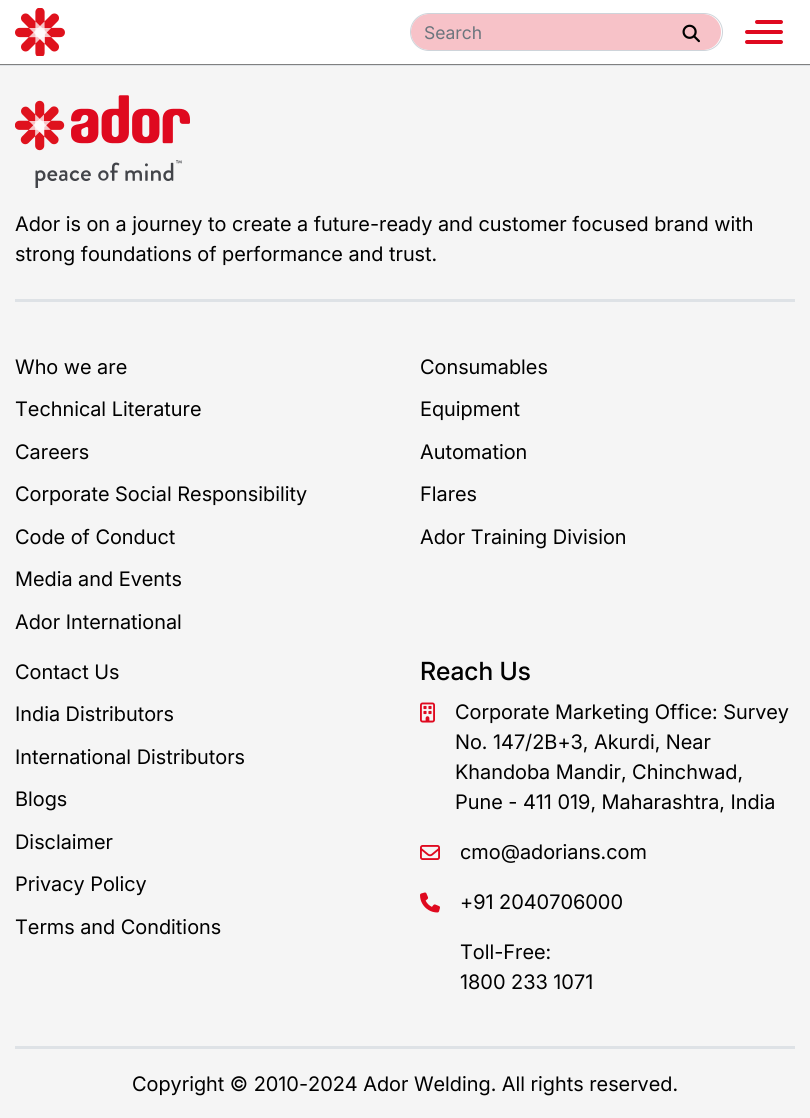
import math
import cairo



def rounded_rect(context, x, y, w, h, r):
    context.new_sub_path()
    for i, (u, v) in enumerate([(x + w - r, y + h - r), (x + r, y + h - r), (x + r, y + r), (x + w - r, y + r)]):
        context.arc(u, v, r, i * math.pi / 2, (i + 1) * math.pi / 2)
    context.close_path()


def draw_image(context, path, x, y, w, h):
    context.save()
    context.set_source_surface(cairo.ImageSurface.create_from_png(path), x, y)
    context.rectangle(x, y, w, h)
    context.fill()
    context.restore()


def draw(context):
    context.set_source_rgb(245 / 255, 245 / 255, 245 / 255)
    context.paint()
    context.set_source_rgb(1, 1, 1)
    context.rectangle(0, 0, 810, 64)
    context.fill()
    context.set_source_rgb(128 / 255, 128 / 255, 128 / 255)
    context.rectangle(0, 64, 810, 1)
    context.fill()
    draw_image(context, "images/1.png", 15, 8, 50, 48)
    context.set_source_rgb(247 / 255, 194 / 255, 200 / 255)
    rounded_rect(context, 411, 14, 310, 36, 18)
    context.fill()
    rounded_rect(context, 410.5, 13.5, 312, 37, 18.5)
    context.set_source_rgb(206 / 255, 212 / 255, 218 / 255)
    context.set_line_width(1)
    context.stroke()
    draw_image(context, "images/2.png", 682, 24, 18, 19)
    context.set_source_rgb(223 / 255, 9 / 255, 31 / 255)
    rounded_rect(context, 745, 30, 38, 4, 2)
    context.fill()
    rounded_rect(context, 755, 20, 28, 4, 2)
    context.fill()
    rounded_rect(context, 745, 40, 38, 4, 2)
    context.fill()
    context.set_source_rgb(222 / 255, 226 / 255, 230 / 255)
    context.rectangle(0, 65, 810, 1)
    context.fill()
    context.rectangle(15, 299, 780, 3)
    context.fill()
    draw_image(context, "images/3.png", 15, 95, 175, 93)
    draw_image(context, "images/4.png", 420, 702, 15, 21)
    draw_image(context, "images/5.png", 420, 845, 20, 15)
    draw_image(context, "images/6.png", 420, 892, 20, 21)
    context.rectangle(15, 1046, 780, 3)
    context.fill()
    context.select_font_face("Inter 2")
    context.set_font_size(17.5)
    context.set_source_rgb(108 / 255, 117 / 255, 125 / 255)
    context.move_to(424, 39)
    context.show_text("Search")
    context.select_font_face("Inter")
    context.set_font_size(20)
    context.set_source_rgb(0, 0, 0)
    context.move_to(15, 231)
    context.show_text("Ador is on a journey to create a future-ready and customer focused brand with")
    context.move_to(15, 261)
    context.show_text("strong foundations of performance and trust.")
    context.move_to(15, 374)
    context.show_text("Who we are")
    context.move_to(15, 416)
    context.show_text("Technical Literature")
    context.move_to(15, 459)
    context.show_text("Careers")
    context.move_to(15, 501)
    context.show_text("Corporate Social Responsibility")
    context.move_to(15, 544)
    context.show_text("Code of Conduct")
    context.move_to(15, 586)
    context.show_text("Media and Events")
    context.move_to(15, 629)
    context.show_text("Ador International")
    context.move_to(420, 374)
    context.show_text("Consumables")
    context.move_to(420, 416)
    context.show_text("Equipment")
    context.move_to(420, 459)
    context.show_text("Automation")
    context.move_to(420, 501)
    context.show_text("Flares")
    context.move_to(420, 544)
    context.show_text("Ador Training Division")
    context.move_to(15, 679)
    context.show_text("Contact Us")
    context.move_to(15, 721)
    context.show_text("India Distributors")
    context.move_to(15, 764)
    context.show_text("International Distributors")
    context.move_to(15, 806)
    context.show_text("Blogs")
    context.move_to(15, 849)
    context.show_text("Disclaimer")
    context.move_to(15, 891)
    context.show_text("Privacy Policy")
    context.move_to(15, 934)
    context.show_text("Terms and Conditions")
    context.select_font_face("Inter Medium")
    context.set_font_size(25)
    context.move_to(420, 680)
    context.show_text("Reach Us")
    context.select_font_face("Inter")
    context.set_font_size(20)
    context.move_to(455, 719)
    context.show_text("Corporate Marketing Office: Survey")
    context.move_to(455, 749)
    context.show_text("No. 147/2B+3, Akurdi, Near")
    context.move_to(455, 779)
    context.show_text("Khandoba Mandir, Chinchwad,")
    context.move_to(455, 809)
    context.show_text("Pune - 411 019, Maharashtra, India")
    context.move_to(460, 859)
    context.show_text("cmo@adorians.com")
    context.move_to(460, 909)
    context.show_text("+91 2040706000")
    context.move_to(460, 959)
    context.show_text("Toll-Free:")
    context.move_to(460, 989)
    context.show_text("1800 233 1071")
    context.move_to(132, 1091)
    context.show_text("Copyright © 2010-2024 Ador Welding. All rights reserved.")


surface = cairo.ImageSurface(cairo.Format.RGB24, 810, 1118)
context = cairo.Context(surface)
options = cairo.FontOptions()
options.set_hint_metrics(cairo.HintMetrics.OFF)
options.set_hint_style(cairo.HintStyle.NONE)
context.set_font_options(options)
context.set_miter_limit(4)
draw(context)
surface.write_to_png("out.png")
